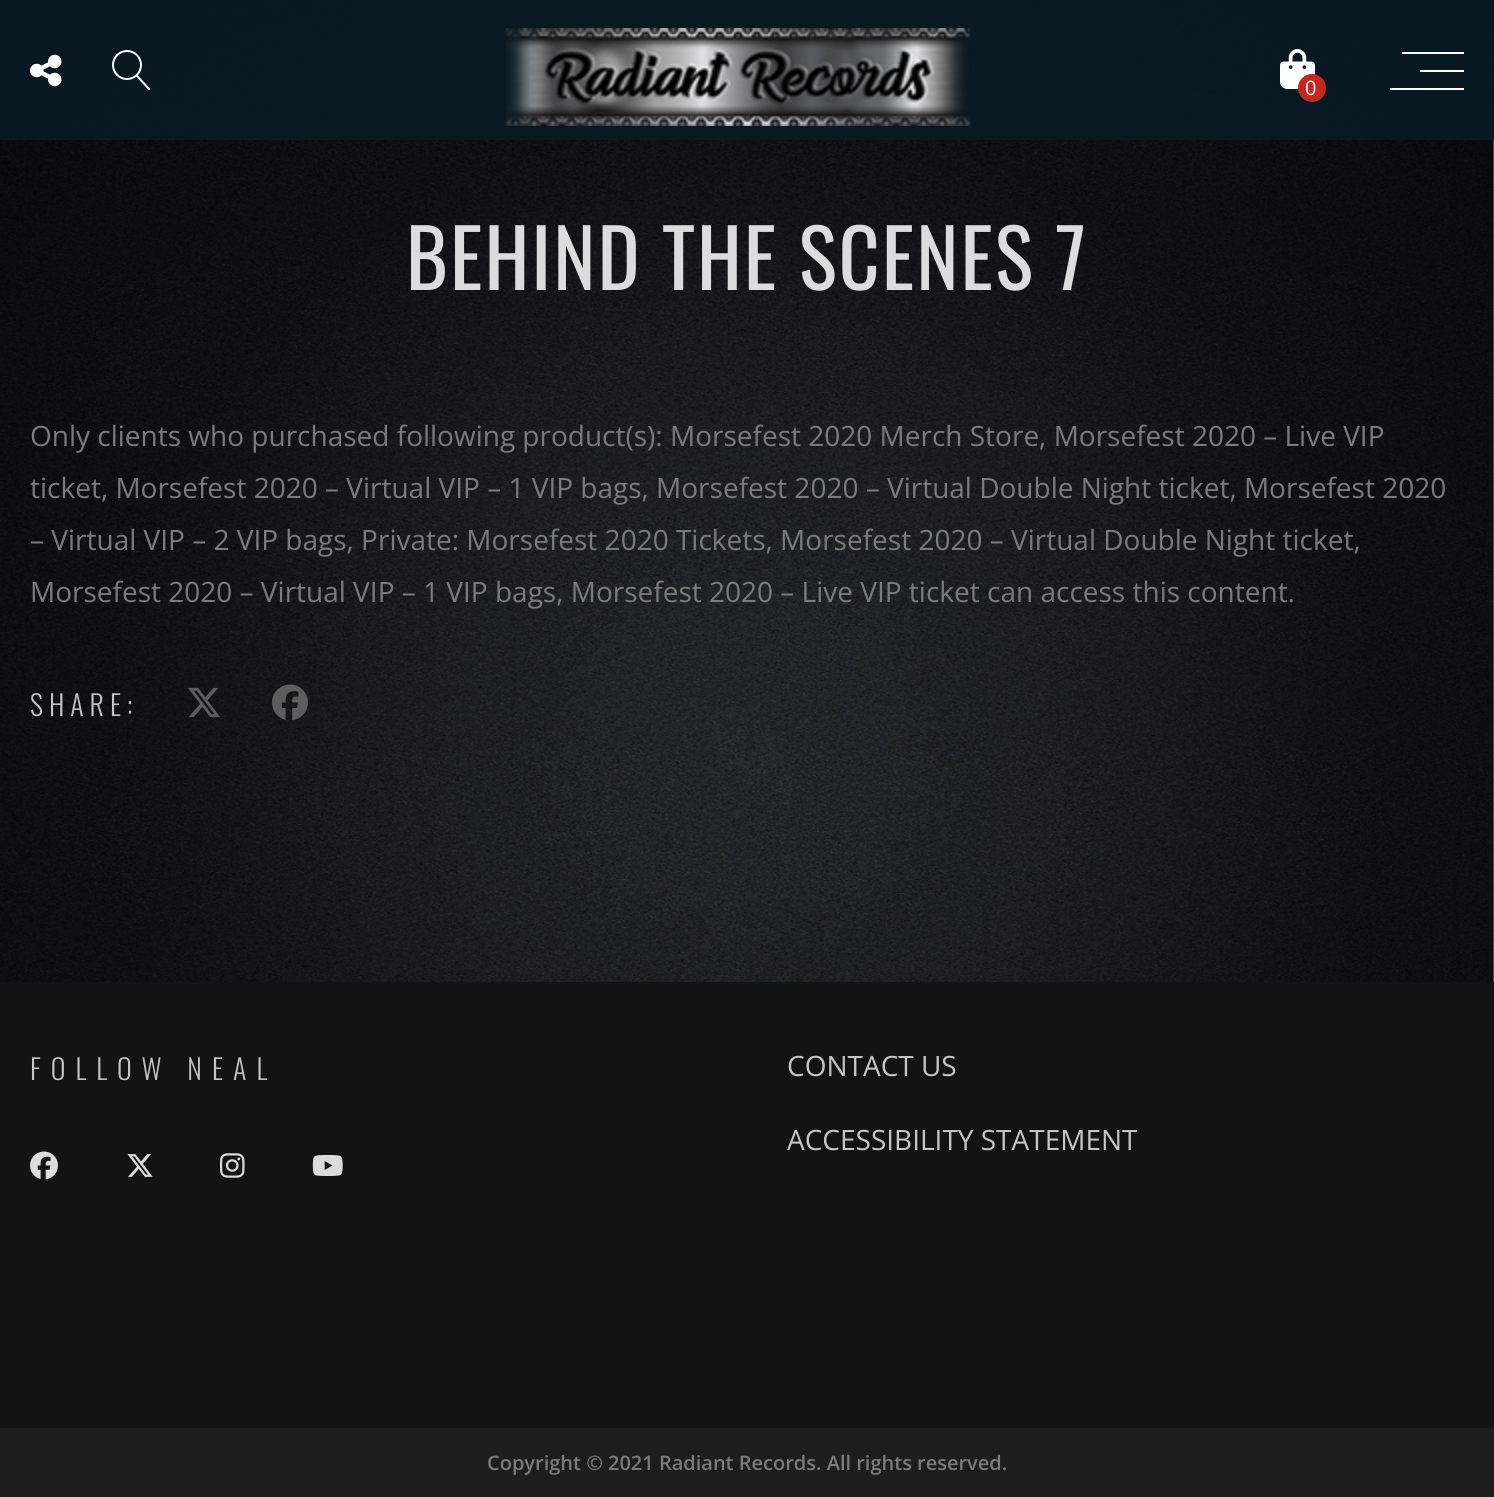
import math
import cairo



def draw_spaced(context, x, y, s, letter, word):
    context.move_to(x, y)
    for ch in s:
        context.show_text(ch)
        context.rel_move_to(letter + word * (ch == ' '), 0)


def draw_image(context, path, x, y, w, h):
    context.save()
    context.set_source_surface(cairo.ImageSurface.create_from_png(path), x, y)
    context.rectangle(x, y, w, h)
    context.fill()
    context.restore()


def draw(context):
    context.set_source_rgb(1, 1, 1)
    context.paint()
    draw_image(context, "images/1.png", 0, 0, 1494, 982)
    context.set_source_rgba(8 / 255, 26 / 255, 36 / 255, 0.8)
    context.rectangle(0, 0, 1494, 140)
    context.fill()
    context.rectangle(0, 0, 1494, 140)
    context.fill()
    draw_image(context, "images/2.png", 30, 54, 32, 33)
    draw_image(context, "images/3.png", 112, 50, 38, 40)
    draw_image(context, "images/4.png", 505, 28, 466, 98)
    draw_image(context, "images/5.png", 1280, 49, 35, 40)
    context.set_source_rgb(195 / 255, 39 / 255, 32 / 255)
    context.arc(1312, 88, 14, 0, 2 * math.pi)
    context.fill()
    context.set_source_rgb(1, 1, 1)
    context.rectangle(1402, 52, 62, 2)
    context.fill()
    context.rectangle(1420, 70, 44, 2)
    context.fill()
    context.rectangle(1390, 88, 74, 2)
    context.fill()
    draw_image(context, "images/6.png", 188, 687, 32, 31)
    draw_image(context, "images/7.png", 272, 684, 36, 37)
    context.set_source_rgb(19 / 255, 19 / 255, 19 / 255)
    context.rectangle(0, 982, 1494, 446)
    context.fill()
    draw_image(context, "images/8.png", 30, 1151, 28, 29)
    draw_image(context, "images/9.png", 127, 1154, 26, 23)
    draw_image(context, "images/10.png", 220, 1153, 25, 25)
    draw_image(context, "images/11.png", 312, 1155, 31, 21)
    context.set_source_rgb(29 / 255, 29 / 255, 29 / 255)
    context.rectangle(0, 1428, 1494, 69)
    context.fill()
    context.select_font_face("Open Sans")
    context.set_font_size(20)
    context.set_source_rgb(1, 1, 1)
    context.move_to(1305, 95)
    context.show_text("0")
    context.select_font_face("Oswald")
    context.set_font_size(80)
    context.set_source_rgb(220 / 255, 220 / 255, 220 / 255)
    draw_spaced(context, 406, 290, "BEHIND THE SCENES 7", 2, 0)
    context.select_font_face("Open Sans")
    context.set_font_size(28)
    context.set_source_rgb(123 / 255, 123 / 255, 123 / 255)
    context.move_to(30, 446)
    context.show_text("Only clients who purchased following product(s): Morsefest 2020 Merch Store, Morsefest 2020 – Live VIP")
    context.move_to(30, 498)
    context.show_text("ticket, Morsefest 2020 – Virtual VIP – 1 VIP bags, Morsefest 2020 – Virtual Double Night ticket, Morsefest 2020")
    context.move_to(30, 550)
    context.show_text("– Virtual VIP – 2 VIP bags, Private: Morsefest 2020 Tickets, Morsefest 2020 – Virtual Double Night ticket,")
    context.move_to(30, 602)
    context.show_text("Morsefest 2020 – Virtual VIP – 1 VIP bags, Morsefest 2020 – Live VIP ticket can access this content.")
    context.select_font_face("Oswald Light")
    context.set_source_rgb(197 / 255, 197 / 255, 197 / 255)
    draw_spaced(context, 30, 716, "SHARE:", 6, 0)
    draw_spaced(context, 30, 1080, "FOLLOW NEAL", 10, 0)
    context.select_font_face("Open Sans")
    context.move_to(787, 1076)
    context.show_text("CONTACT US")
    context.move_to(787, 1150)
    context.show_text("ACCESSIBILITY STATEMENT")
    context.select_font_face("Open Sans SemiBold")
    context.set_font_size(20)
    context.set_source_rgb(123 / 255, 123 / 255, 123 / 255)
    context.move_to(487, 1470)
    context.show_text("Copyright © 2021 Radiant Records. All rights reserved.")


surface = cairo.ImageSurface(cairo.Format.RGB24, 1494, 1497)
context = cairo.Context(surface)
options = cairo.FontOptions()
options.set_hint_metrics(cairo.HintMetrics.OFF)
options.set_hint_style(cairo.HintStyle.NONE)
context.set_font_options(options)
context.set_miter_limit(4)
draw(context)
surface.write_to_png("out.png")
